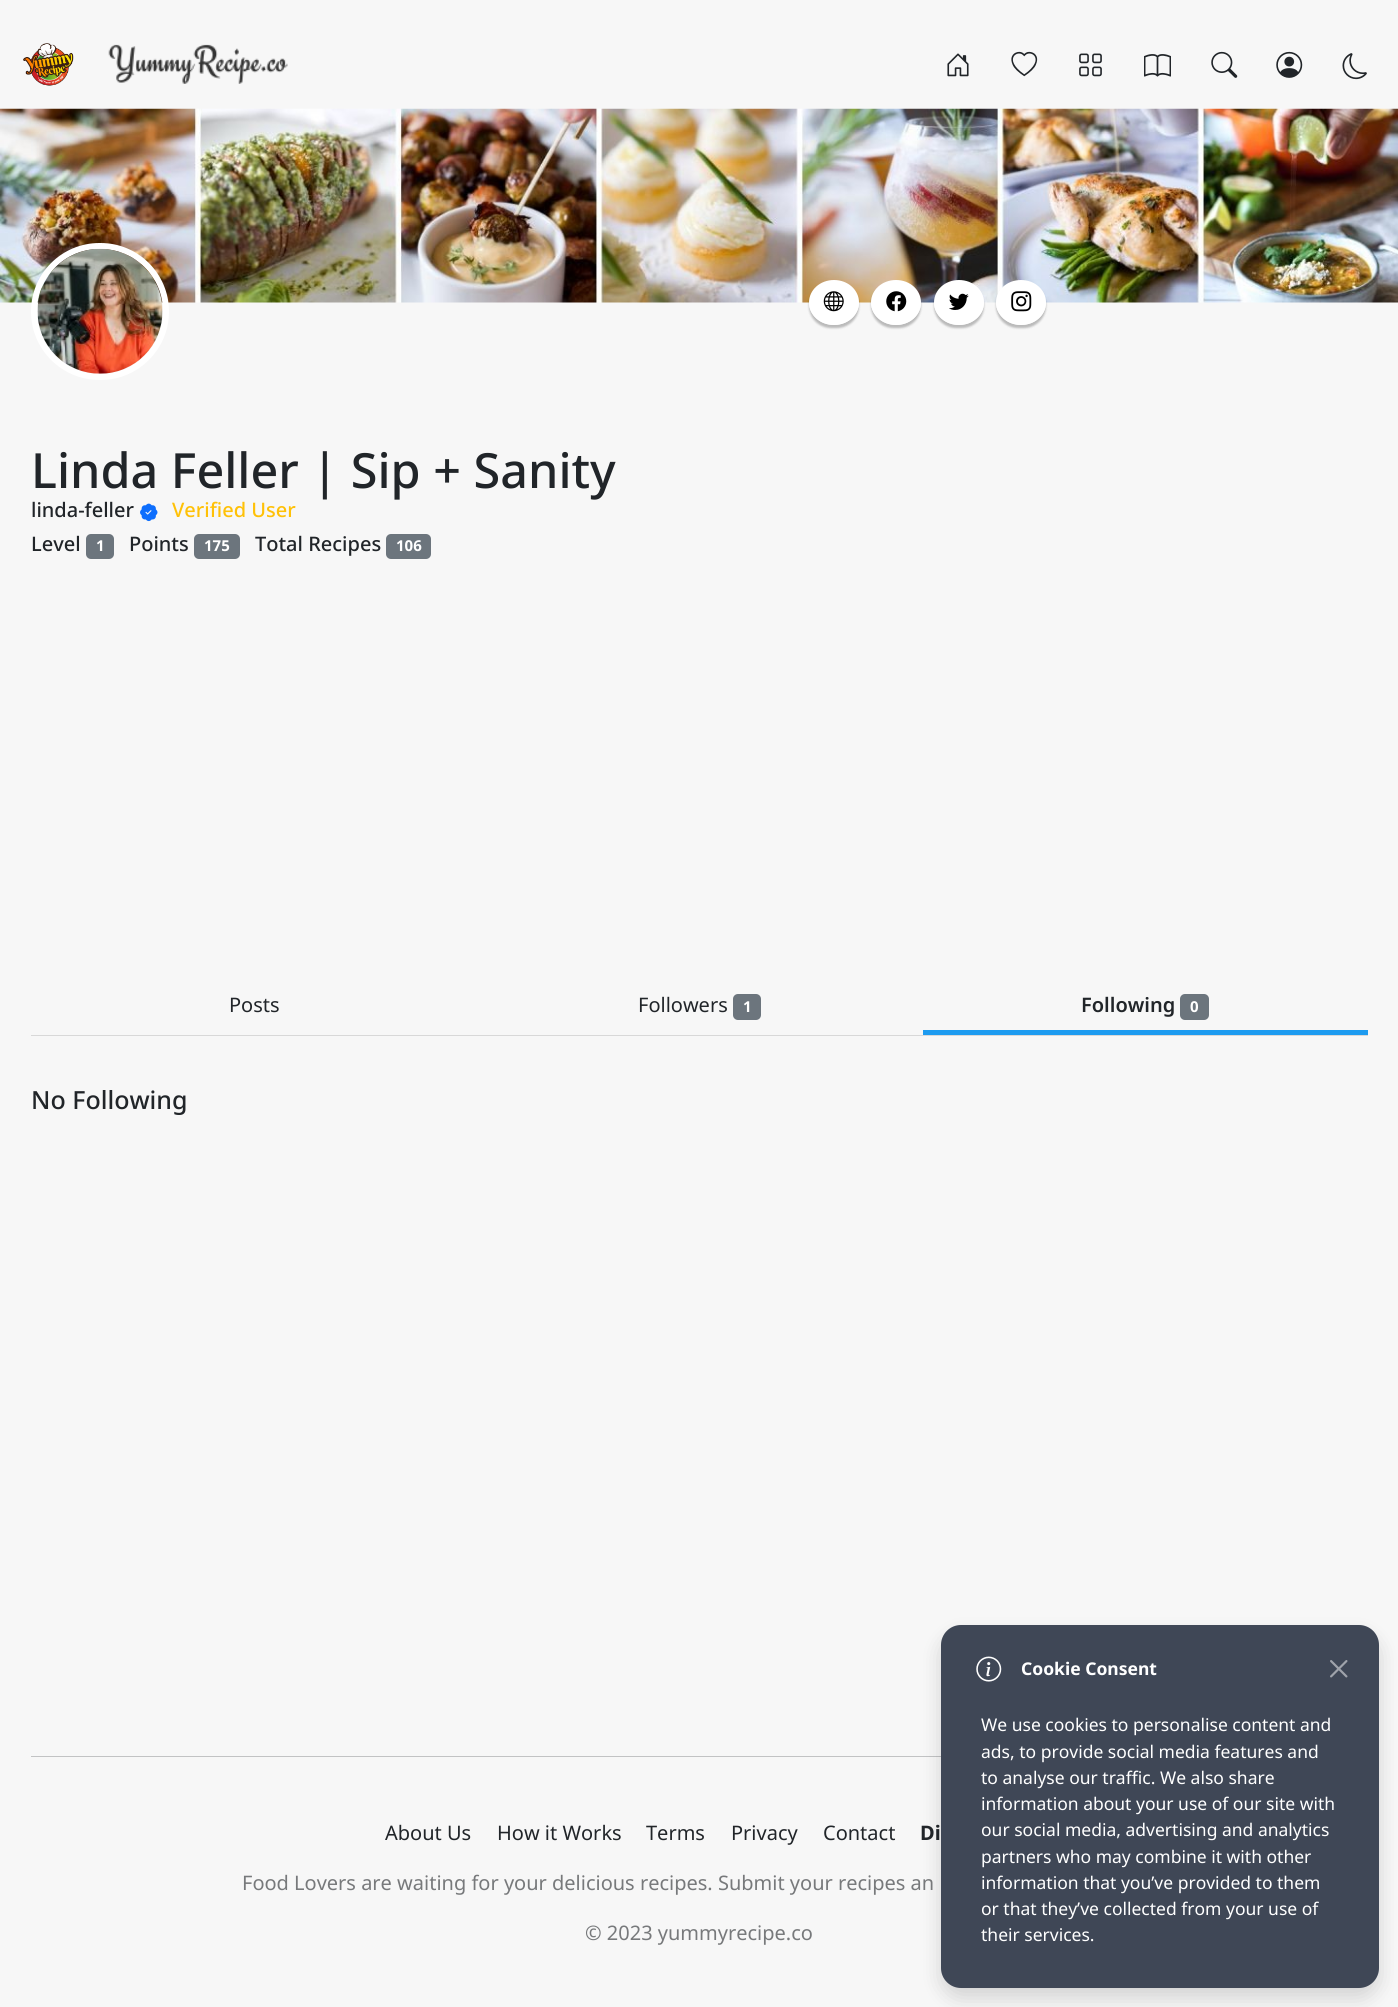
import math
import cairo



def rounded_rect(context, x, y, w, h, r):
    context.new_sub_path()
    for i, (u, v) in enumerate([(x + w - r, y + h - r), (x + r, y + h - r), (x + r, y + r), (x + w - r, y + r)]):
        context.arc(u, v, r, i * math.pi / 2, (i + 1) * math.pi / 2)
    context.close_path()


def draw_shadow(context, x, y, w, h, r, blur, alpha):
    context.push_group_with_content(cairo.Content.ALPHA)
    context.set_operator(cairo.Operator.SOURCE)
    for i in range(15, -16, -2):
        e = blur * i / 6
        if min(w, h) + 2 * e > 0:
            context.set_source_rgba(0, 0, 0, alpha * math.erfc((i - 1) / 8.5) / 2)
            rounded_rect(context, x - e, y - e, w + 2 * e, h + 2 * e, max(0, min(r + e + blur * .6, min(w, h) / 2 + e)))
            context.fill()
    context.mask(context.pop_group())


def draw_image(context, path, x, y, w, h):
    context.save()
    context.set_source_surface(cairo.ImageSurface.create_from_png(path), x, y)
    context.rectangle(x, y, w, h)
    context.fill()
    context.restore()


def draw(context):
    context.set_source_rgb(247 / 255, 247 / 255, 247 / 255)
    context.paint()
    draw_image(context, "images/1.png", 23, 43, 51, 43)
    draw_image(context, "images/2.png", 108, 44, 180, 40)
    draw_image(context, "images/3.png", 947, 53, 22, 24)
    draw_image(context, "images/4.png", 1011, 51, 27, 26)
    draw_image(context, "images/5.png", 1079, 53, 23, 24)
    draw_image(context, "images/6.png", 1144, 54, 27, 23)
    draw_image(context, "images/7.png", 1211, 51, 27, 27)
    draw_image(context, "images/8.png", 1276, 51, 27, 27)
    draw_image(context, "images/9.png", 1342, 53, 25, 27)
    draw_image(context, "images/10.png", 0, 108, 1398, 195)
    context.set_source_rgb(216 / 255, 216 / 255, 216 / 255)
    context.rectangle(31, 1035, 1337, 1)
    context.fill()
    context.save()
    context.set_fill_rule(cairo.FillRule.EVEN_ODD)
    context.new_path()
    context.move_to(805, 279)
    context.line_to(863, 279)
    context.line_to(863, 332)
    context.line_to(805, 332)
    context.close_path()
    context.move_to(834, 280)
    context.curve_to(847.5, 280, 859, 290, 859, 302.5)
    context.curve_to(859, 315, 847.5, 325, 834, 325)
    context.curve_to(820, 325, 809, 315, 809, 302.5)
    context.curve_to(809, 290, 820, 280, 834, 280)
    context.close_path()
    context.clip()
    context.set_source_rgb(0, 0, 0)
    draw_shadow(context, 809, 283, 50, 45, 22.5, 1, 0.25)
    context.restore()
    context.set_source_rgb(1, 1, 1)
    context.new_path()
    context.move_to(834, 280)
    context.curve_to(848, 280, 859, 290, 859, 302.5)
    context.curve_to(859, 315, 848, 325, 834, 325)
    context.curve_to(820, 325, 809, 315, 809, 302.5)
    context.curve_to(809, 290, 820, 280, 834, 280)
    context.close_path()
    context.fill()
    draw_image(context, "images/11.png", 823, 291, 21, 21)
    context.save()
    context.set_fill_rule(cairo.FillRule.EVEN_ODD)
    context.new_path()
    context.move_to(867, 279)
    context.line_to(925, 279)
    context.line_to(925, 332)
    context.line_to(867, 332)
    context.close_path()
    context.move_to(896, 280)
    context.curve_to(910, 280, 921, 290, 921, 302.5)
    context.curve_to(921, 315, 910, 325, 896, 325)
    context.curve_to(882.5, 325, 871, 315, 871, 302.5)
    context.curve_to(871, 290, 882.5, 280, 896, 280)
    context.close_path()
    context.clip()
    context.set_source_rgb(0, 0, 0)
    draw_shadow(context, 871, 283, 50, 45, 22.5, 1, 0.25)
    context.restore()
    context.new_path()
    context.move_to(896, 280)
    context.curve_to(910, 280, 921, 290, 921, 302.5)
    context.curve_to(921, 315, 910, 325, 896, 325)
    context.curve_to(882, 325, 871, 315, 871, 302.5)
    context.curve_to(871, 290, 882, 280, 896, 280)
    context.close_path()
    context.fill()
    draw_image(context, "images/12.png", 886, 291, 21, 21)
    context.save()
    context.set_fill_rule(cairo.FillRule.EVEN_ODD)
    context.new_path()
    context.move_to(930, 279)
    context.line_to(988, 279)
    context.line_to(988, 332)
    context.line_to(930, 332)
    context.close_path()
    context.move_to(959, 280)
    context.curve_to(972.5, 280, 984, 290, 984, 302.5)
    context.curve_to(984, 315, 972.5, 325, 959, 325)
    context.curve_to(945, 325, 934, 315, 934, 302.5)
    context.curve_to(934, 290, 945, 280, 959, 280)
    context.close_path()
    context.clip()
    context.set_source_rgb(0, 0, 0)
    draw_shadow(context, 934, 283, 50, 45, 22.5, 1, 0.25)
    context.restore()
    context.new_path()
    context.move_to(959, 280)
    context.curve_to(973, 280, 984, 290, 984, 302.5)
    context.curve_to(984, 315, 973, 325, 959, 325)
    context.curve_to(945, 325, 934, 315, 934, 302.5)
    context.curve_to(934, 290, 945, 280, 959, 280)
    context.close_path()
    context.fill()
    draw_image(context, "images/13.png", 949, 293, 20, 17)
    context.save()
    context.set_fill_rule(cairo.FillRule.EVEN_ODD)
    context.new_path()
    context.move_to(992, 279)
    context.line_to(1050, 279)
    context.line_to(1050, 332)
    context.line_to(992, 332)
    context.close_path()
    context.move_to(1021, 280)
    context.curve_to(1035, 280, 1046, 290, 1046, 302.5)
    context.curve_to(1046, 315, 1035, 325, 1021, 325)
    context.curve_to(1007.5, 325, 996, 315, 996, 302.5)
    context.curve_to(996, 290, 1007.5, 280, 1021, 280)
    context.close_path()
    context.clip()
    context.set_source_rgb(0, 0, 0)
    draw_shadow(context, 996, 283, 50, 45, 22.5, 1, 0.25)
    context.restore()
    context.new_path()
    context.move_to(1021, 280)
    context.curve_to(1035, 280, 1046, 290, 1046, 302.5)
    context.curve_to(1046, 315, 1035, 325, 1021, 325)
    context.curve_to(1007, 325, 996, 315, 996, 302.5)
    context.curve_to(996, 290, 1007, 280, 1021, 280)
    context.close_path()
    context.fill()
    draw_image(context, "images/14.png", 1011, 291, 21, 21)
    rounded_rect(context, 34, 246, 132, 131, 65.5)
    context.set_line_width(6)
    context.stroke()
    draw_image(context, "images/15.png", 37, 248, 126, 126)
    draw_image(context, "images/16.png", 140, 503, 18, 19)
    context.set_source_rgb(108 / 255, 117 / 255, 125 / 255)
    rounded_rect(context, 86, 534, 28, 25, 5)
    context.fill()
    rounded_rect(context, 194, 534, 46, 25, 5)
    context.fill()
    rounded_rect(context, 386, 534, 45, 25, 5)
    context.fill()
    rounded_rect(context, 733, 994, 28, 26, 5)
    context.fill()
    context.set_source_rgb(29 / 255, 155 / 255, 240 / 255)
    context.rectangle(923, 1030, 445, 5)
    context.fill()
    context.set_source_rgb(108 / 255, 117 / 255, 125 / 255)
    rounded_rect(context, 1180, 994, 29, 26, 5)
    context.fill()
    context.set_source_rgb(194 / 255, 195 / 255, 196 / 255)
    context.rectangle(31, 1756, 910, 1)
    context.fill()
    context.set_source_rgb(0, 0, 0)
    draw_shadow(context, 941, 1635, 438, 363, 20, 10, 0.15)
    context.set_source_rgb(63 / 255, 71 / 255, 86 / 255)
    rounded_rect(context, 941, 1625, 438, 363, 20)
    context.fill()
    draw_image(context, "images/17.png", 976, 1656, 26, 26)
    draw_image(context, "images/18.png", 1330, 1660, 18, 18)
    context.select_font_face("Noto Sans Medium")
    context.set_font_size(48.5)
    context.set_source_rgb(33 / 255, 37 / 255, 41 / 255)
    context.move_to(31, 488)
    context.show_text("Linda Feller | Sip + Sanity")
    context.set_font_size(20)
    context.move_to(31, 517)
    context.show_text("linda-feller")
    context.set_source_rgb(1, 193 / 255, 7 / 255)
    context.move_to(172, 517)
    context.show_text("Verified User")
    context.set_source_rgb(33 / 255, 37 / 255, 41 / 255)
    context.move_to(31, 551)
    context.show_text("Level")
    context.select_font_face("Noto Sans", cairo.FontSlant.NORMAL, cairo.FontWeight.BOLD)
    context.set_font_size(15)
    context.set_source_rgb(1, 1, 1)
    context.move_to(96, 551)
    context.show_text("1")
    context.select_font_face("Noto Sans Medium")
    context.set_font_size(20)
    context.set_source_rgb(33 / 255, 37 / 255, 41 / 255)
    context.move_to(129, 551)
    context.show_text("Points")
    context.select_font_face("Noto Sans", cairo.FontSlant.NORMAL, cairo.FontWeight.BOLD)
    context.set_font_size(15)
    context.set_source_rgb(1, 1, 1)
    context.move_to(204, 551)
    context.show_text("175")
    context.select_font_face("Noto Sans Medium")
    context.set_font_size(20)
    context.set_source_rgb(33 / 255, 37 / 255, 41 / 255)
    context.move_to(255, 551)
    context.show_text("Total Recipes")
    context.select_font_face("Noto Sans", cairo.FontSlant.NORMAL, cairo.FontWeight.BOLD)
    context.set_font_size(15)
    context.set_source_rgb(1, 1, 1)
    context.move_to(396, 551)
    context.show_text("106")
    context.select_font_face("Noto Sans")
    context.set_font_size(20)
    context.set_source_rgb(33 / 255, 37 / 255, 41 / 255)
    context.move_to(229, 1012)
    context.show_text("Posts")
    context.move_to(638, 1012)
    context.show_text("Followers")
    context.select_font_face("Noto Sans", cairo.FontSlant.NORMAL, cairo.FontWeight.BOLD)
    context.set_font_size(15)
    context.set_source_rgb(1, 1, 1)
    context.move_to(743, 1012)
    context.show_text("1")
    context.select_font_face("Noto Sans SemiBold")
    context.set_font_size(20)
    context.set_source_rgb(33 / 255, 37 / 255, 41 / 255)
    context.move_to(1081, 1012)
    context.show_text("Following")
    context.select_font_face("Noto Sans", cairo.FontSlant.NORMAL, cairo.FontWeight.BOLD)
    context.set_font_size(15)
    context.set_source_rgb(1, 1, 1)
    context.move_to(1190, 1012)
    context.show_text("0")
    context.select_font_face("Noto Sans Medium")
    context.set_font_size(25)
    context.set_source_rgb(33 / 255, 37 / 255, 41 / 255)
    context.move_to(31, 1109)
    context.show_text("No Following")
    context.select_font_face("Noto Sans")
    context.set_font_size(20)
    context.move_to(385, 1840)
    context.show_text("About Us")
    context.move_to(497, 1840)
    context.show_text("How it Works")
    context.move_to(646, 1840)
    context.show_text("Terms")
    context.move_to(731, 1840)
    context.show_text("Privacy")
    context.move_to(823, 1840)
    context.show_text("Contact")
    context.select_font_face("Noto Sans", cairo.FontSlant.NORMAL, cairo.FontWeight.BOLD)
    context.move_to(920, 1840)
    context.show_text("Di")
    context.select_font_face("Noto Sans")
    context.set_source_rgb(119 / 255, 121 / 255, 123 / 255)
    context.move_to(242, 1890)
    context.show_text("Food Lovers are waiting for your delicious recipes. Submit your recipes an")
    context.move_to(585, 1940)
    context.show_text("© 2023 yummyrecipe.co")
    context.select_font_face("Noto Sans", cairo.FontSlant.NORMAL, cairo.FontWeight.BOLD)
    context.set_font_size(17.5)
    context.set_source_rgb(1, 1, 1)
    context.move_to(1021, 1675)
    context.show_text("Cookie Consent")
    context.select_font_face("Noto Sans")
    context.move_to(981, 1731)
    context.show_text("We use cookies to personalise content and")
    context.move_to(981, 1758)
    context.show_text("ads, to provide social media features and")
    context.move_to(981, 1784)
    context.show_text("to analyse our traffic. We also share")
    context.move_to(981, 1810)
    context.show_text("information about your use of our site with")
    context.move_to(981, 1836)
    context.show_text("our social media, advertising and analytics")
    context.move_to(981, 1863)
    context.show_text("partners who may combine it with other")
    context.move_to(981, 1889)
    context.show_text("information that you’ve provided to them")
    context.move_to(981, 1915)
    context.show_text("or that they’ve collected from your use of")
    context.move_to(981, 1941)
    context.show_text("their services.")


surface = cairo.ImageSurface(cairo.Format.RGB24, 1398, 2007)
context = cairo.Context(surface)
options = cairo.FontOptions()
options.set_hint_metrics(cairo.HintMetrics.OFF)
options.set_hint_style(cairo.HintStyle.NONE)
context.set_font_options(options)
context.set_miter_limit(4)
draw(context)
surface.write_to_png("out.png")
